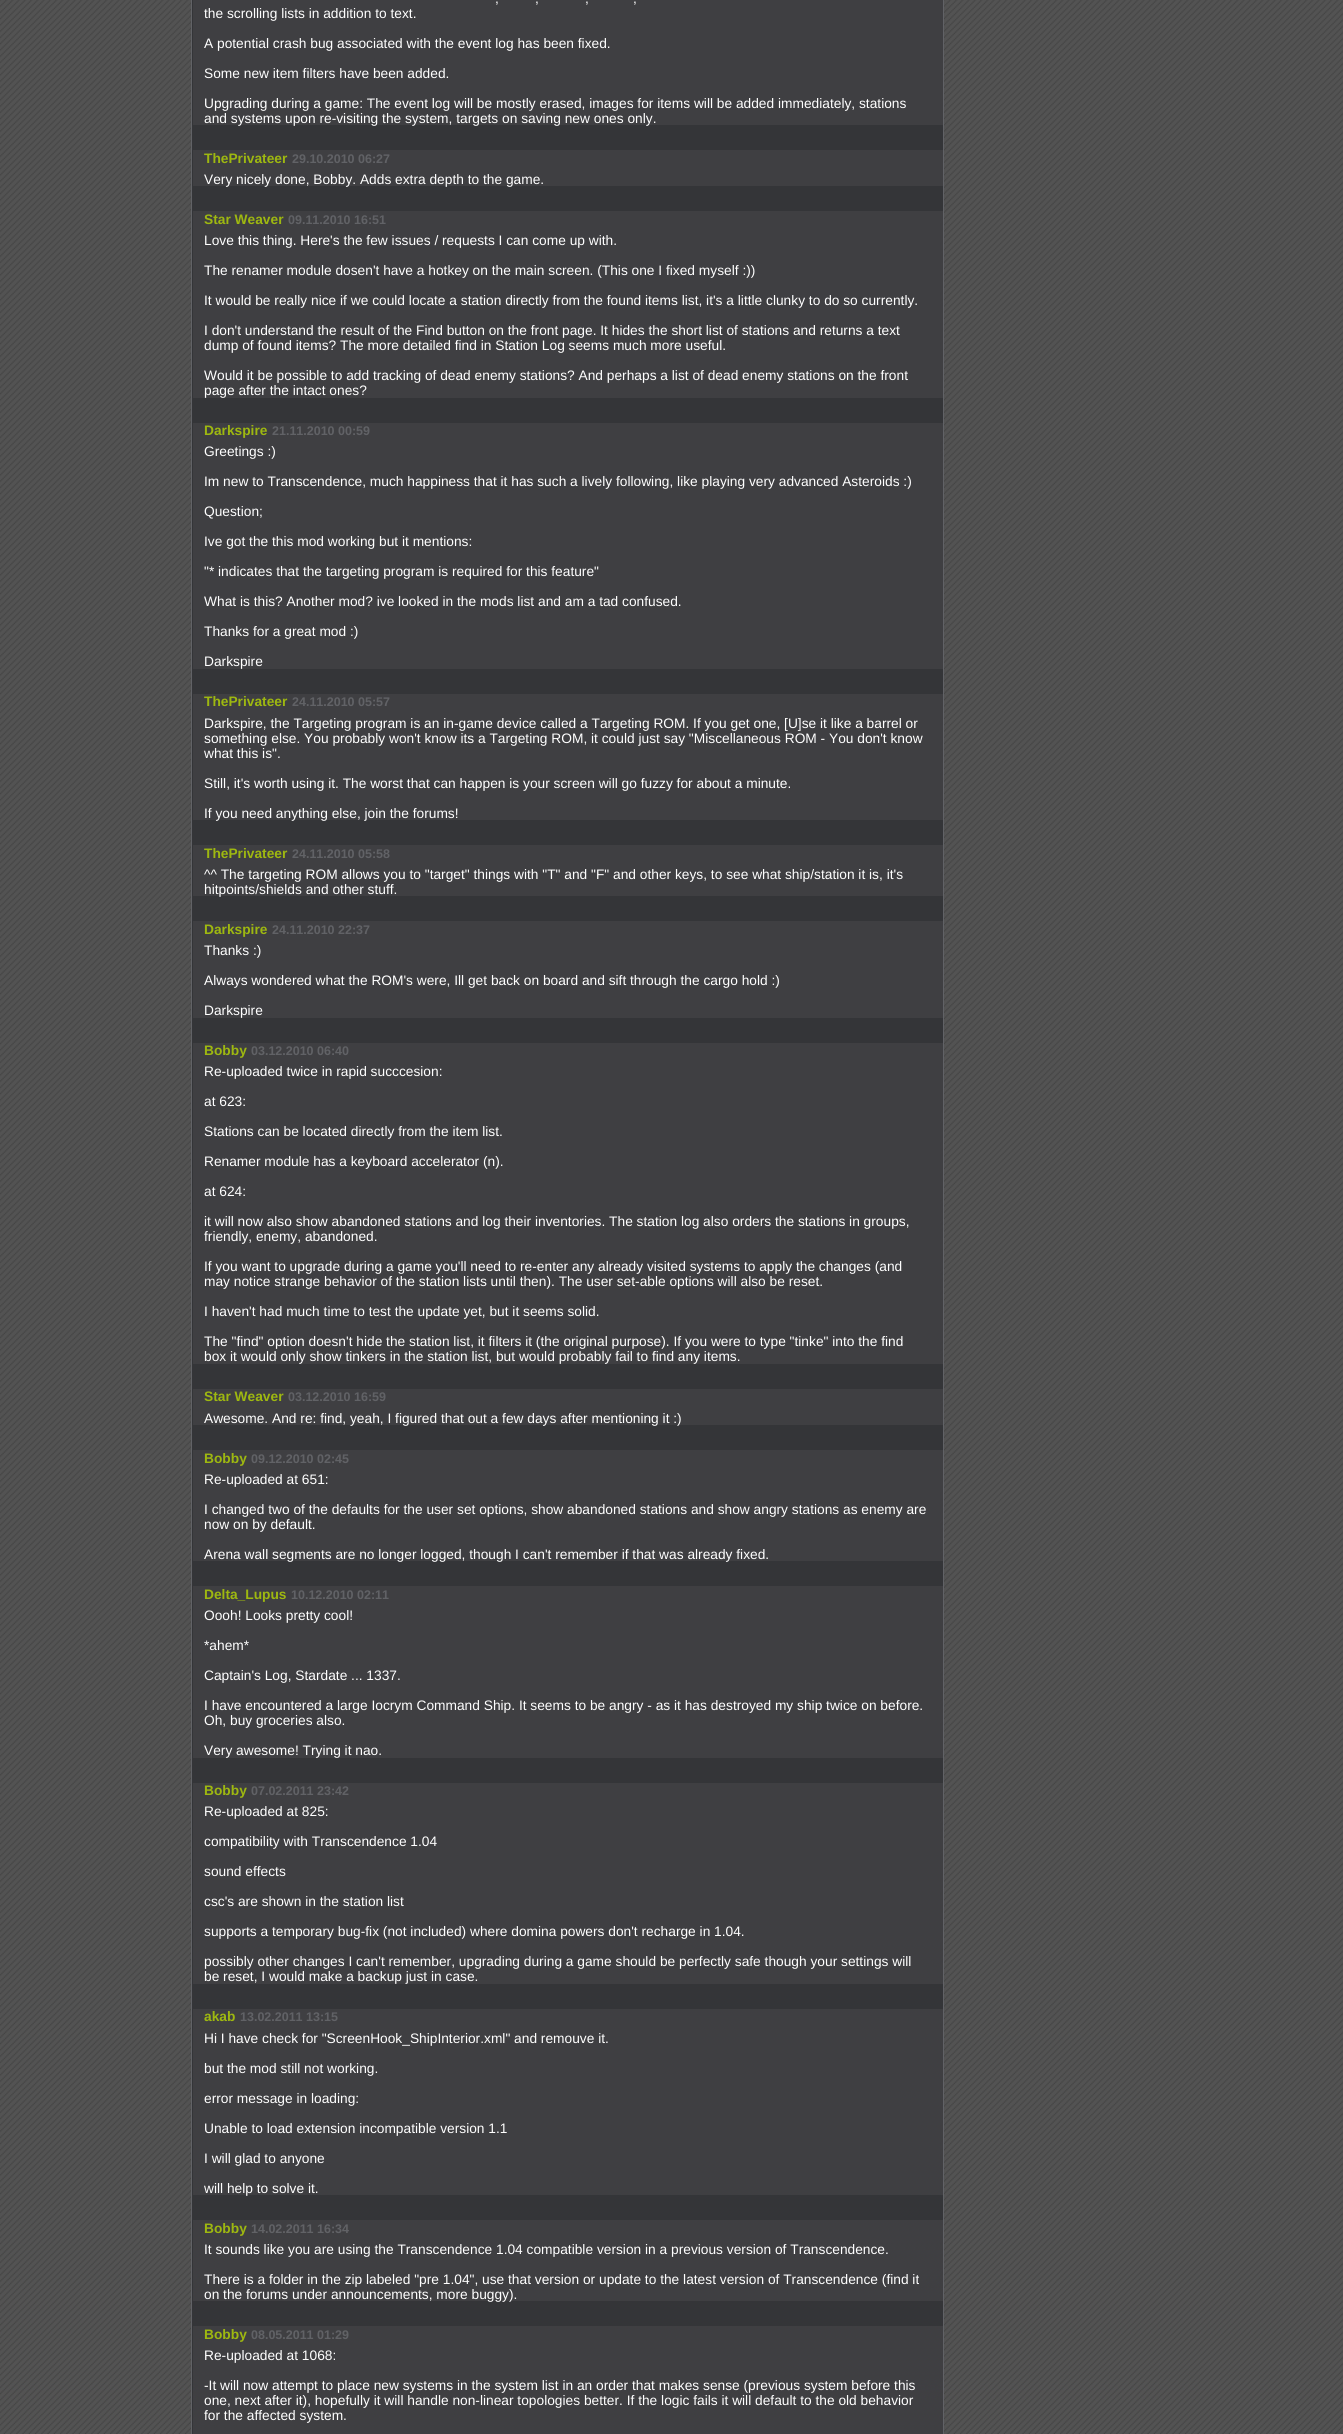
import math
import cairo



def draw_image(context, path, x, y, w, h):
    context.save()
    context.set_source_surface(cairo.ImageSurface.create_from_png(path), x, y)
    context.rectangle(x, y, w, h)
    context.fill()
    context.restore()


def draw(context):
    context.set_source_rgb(1, 1, 1)
    context.paint()
    draw_image(context, "images/1.png", 0, 0, 1343, 2434)
    context.set_source_rgb(52 / 255, 53 / 255, 56 / 255)
    context.rectangle(191.5, -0.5, 752, 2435)
    context.fill_preserve()
    context.set_source_rgb(97 / 255, 98 / 255, 102 / 255)
    context.set_line_width(1)
    context.stroke()
    context.set_source_rgb(63 / 255, 63 / 255, 66 / 255)
    context.rectangle(193, 0, 750, 125)
    context.fill()
    context.rectangle(193, 150, 750, 36)
    context.fill()
    context.rectangle(193, 211, 750, 187)
    context.fill()
    context.rectangle(193, 423, 750, 246)
    context.fill()
    context.rectangle(193, 694, 750, 126)
    context.fill()
    context.rectangle(193, 845, 750, 51)
    context.fill()
    context.rectangle(193, 921, 750, 97)
    context.fill()
    context.rectangle(193, 1043, 750, 321)
    context.fill()
    context.rectangle(193, 1389, 750, 36)
    context.fill()
    context.rectangle(193, 1450, 750, 111)
    context.fill()
    context.rectangle(193, 1586, 750, 172)
    context.fill()
    context.rectangle(193, 1783, 750, 201)
    context.fill()
    context.rectangle(193, 2009, 750, 186)
    context.fill()
    context.rectangle(193, 2220, 750, 81)
    context.fill()
    context.rectangle(193, 2326, 750, 108)
    context.fill()
    context.select_font_face("Liberation Sans")
    context.set_font_size(13.75)
    context.set_source_rgb(1, 1, 1)
    context.move_to(495, 3)
    context.show_text(",")
    context.move_to(535, 3)
    context.show_text(",")
    context.move_to(585, 3)
    context.show_text(",")
    context.move_to(633, 3)
    context.show_text(",")
    context.move_to(204, 18)
    context.show_text("the scrolling lists in addition to text.")
    context.move_to(204, 48)
    context.show_text("A potential crash bug associated with the event log has been fixed.")
    context.move_to(204, 78)
    context.show_text("Some new item filters have been added.")
    context.move_to(204, 108)
    context.show_text("Upgrading during a game: The event log will be mostly erased, images for items will be added immediately, stations")
    context.move_to(204, 123)
    context.show_text("and systems upon re-visiting the system, targets on saving new ones only.")
    context.select_font_face("Liberation Sans", cairo.FontSlant.NORMAL, cairo.FontWeight.BOLD)
    context.set_source_rgb(158 / 255, 184 / 255, 16 / 255)
    context.move_to(204, 163)
    context.show_text("ThePrivateer")
    context.set_font_size(12.5)
    context.set_source_rgb(97 / 255, 98 / 255, 102 / 255)
    context.move_to(292, 163)
    context.show_text("29.10.2010 06:27")
    context.select_font_face("Liberation Sans")
    context.set_font_size(13.75)
    context.set_source_rgb(1, 1, 1)
    context.move_to(204, 184)
    context.show_text("Very nicely done, Bobby. Adds extra depth to the game.")
    context.select_font_face("Liberation Sans", cairo.FontSlant.NORMAL, cairo.FontWeight.BOLD)
    context.set_source_rgb(158 / 255, 184 / 255, 16 / 255)
    context.move_to(204, 224)
    context.show_text("Star Weaver")
    context.set_font_size(12.5)
    context.set_source_rgb(97 / 255, 98 / 255, 102 / 255)
    context.move_to(288, 224)
    context.show_text("09.11.2010 16:51")
    context.select_font_face("Liberation Sans")
    context.set_font_size(13.75)
    context.set_source_rgb(1, 1, 1)
    context.move_to(204, 245)
    context.show_text("Love this thing. Here's the few issues / requests I can come up with.")
    context.move_to(204, 275)
    context.show_text("The renamer module dosen't have a hotkey on the main screen. (This one I fixed myself :))")
    context.move_to(204, 305)
    context.show_text("It would be really nice if we could locate a station directly from the found items list, it's a little clunky to do so currently.")
    context.move_to(204, 335)
    context.show_text("I don't understand the result of the Find button on the front page. It hides the short list of stations and returns a text")
    context.move_to(204, 350)
    context.show_text("dump of found items? The more detailed find in Station Log seems much more useful.")
    context.move_to(204, 380)
    context.show_text("Would it be possible to add tracking of dead enemy stations? And perhaps a list of dead enemy stations on the front")
    context.move_to(204, 395)
    context.show_text("page after the intact ones?")
    context.select_font_face("Liberation Sans", cairo.FontSlant.NORMAL, cairo.FontWeight.BOLD)
    context.set_source_rgb(158 / 255, 184 / 255, 16 / 255)
    context.move_to(204, 435)
    context.show_text("Darkspire")
    context.set_font_size(12.5)
    context.set_source_rgb(97 / 255, 98 / 255, 102 / 255)
    context.move_to(272, 435)
    context.show_text("21.11.2010 00:59")
    context.select_font_face("Liberation Sans")
    context.set_font_size(13.75)
    context.set_source_rgb(1, 1, 1)
    context.move_to(204, 456)
    context.show_text("Greetings :)")
    context.move_to(204, 486)
    context.show_text("Im new to Transcendence, much happiness that it has such a lively following, like playing very advanced Asteroids :)")
    context.move_to(204, 516)
    context.show_text("Question;")
    context.move_to(204, 546)
    context.show_text("Ive got the this mod working but it mentions:")
    context.move_to(204, 576)
    context.show_text("\"* indicates that the targeting program is required for this feature\"")
    context.move_to(204, 606)
    context.show_text("What is this? Another mod? ive looked in the mods list and am a tad confused.")
    context.move_to(204, 636)
    context.show_text("Thanks for a great mod :)")
    context.move_to(204, 666)
    context.show_text("Darkspire")
    context.select_font_face("Liberation Sans", cairo.FontSlant.NORMAL, cairo.FontWeight.BOLD)
    context.set_source_rgb(158 / 255, 184 / 255, 16 / 255)
    context.move_to(204, 706)
    context.show_text("ThePrivateer")
    context.set_font_size(12.5)
    context.set_source_rgb(97 / 255, 98 / 255, 102 / 255)
    context.move_to(292, 706)
    context.show_text("24.11.2010 05:57")
    context.select_font_face("Liberation Sans")
    context.set_font_size(13.75)
    context.set_source_rgb(1, 1, 1)
    context.move_to(204, 728)
    context.show_text("Darkspire, the Targeting program is an in-game device called a Targeting ROM. If you get one, [U]se it like a barrel or")
    context.move_to(204, 743)
    context.show_text("something else. You probably won't know its a Targeting ROM, it could just say \"Miscellaneous ROM - You don't know")
    context.move_to(204, 758)
    context.show_text("what this is\".")
    context.move_to(204, 788)
    context.show_text("Still, it's worth using it. The worst that can happen is your screen will go fuzzy for about a minute.")
    context.move_to(204, 818)
    context.show_text("If you need anything else, join the forums!")
    context.select_font_face("Liberation Sans", cairo.FontSlant.NORMAL, cairo.FontWeight.BOLD)
    context.set_source_rgb(158 / 255, 184 / 255, 16 / 255)
    context.move_to(204, 858)
    context.show_text("ThePrivateer")
    context.set_font_size(12.5)
    context.set_source_rgb(97 / 255, 98 / 255, 102 / 255)
    context.move_to(292, 858)
    context.show_text("24.11.2010 05:58")
    context.select_font_face("Liberation Sans")
    context.set_font_size(13.75)
    context.set_source_rgb(1, 1, 1)
    context.move_to(204, 879)
    context.show_text("^^ The targeting ROM allows you to \"target\" things with \"T\" and \"F\" and other keys, to see what ship/station it is, it's")
    context.move_to(204, 894)
    context.show_text("hitpoints/shields and other stuff.")
    context.select_font_face("Liberation Sans", cairo.FontSlant.NORMAL, cairo.FontWeight.BOLD)
    context.set_source_rgb(158 / 255, 184 / 255, 16 / 255)
    context.move_to(204, 934)
    context.show_text("Darkspire")
    context.set_font_size(12.5)
    context.set_source_rgb(97 / 255, 98 / 255, 102 / 255)
    context.move_to(272, 934)
    context.show_text("24.11.2010 22:37")
    context.select_font_face("Liberation Sans")
    context.set_font_size(13.75)
    context.set_source_rgb(1, 1, 1)
    context.move_to(204, 955)
    context.show_text("Thanks :)")
    context.move_to(204, 985)
    context.show_text("Always wondered what the ROM's were, Ill get back on board and sift through the cargo hold :)")
    context.move_to(204, 1015)
    context.show_text("Darkspire")
    context.select_font_face("Liberation Sans", cairo.FontSlant.NORMAL, cairo.FontWeight.BOLD)
    context.set_source_rgb(158 / 255, 184 / 255, 16 / 255)
    context.move_to(204, 1055)
    context.show_text("Bobby")
    context.set_font_size(12.5)
    context.set_source_rgb(97 / 255, 98 / 255, 102 / 255)
    context.move_to(251, 1055)
    context.show_text("03.12.2010 06:40")
    context.select_font_face("Liberation Sans")
    context.set_font_size(13.75)
    context.set_source_rgb(1, 1, 1)
    context.move_to(204, 1076)
    context.show_text("Re-uploaded twice in rapid succcesion:")
    context.move_to(204, 1106)
    context.show_text("at 623:")
    context.move_to(204, 1136)
    context.show_text("Stations can be located directly from the item list.")
    context.move_to(204, 1166)
    context.show_text("Renamer module has a keyboard accelerator (n).")
    context.move_to(204, 1196)
    context.show_text("at 624:")
    context.move_to(204, 1226)
    context.show_text("it will now also show abandoned stations and log their inventories. The station log also orders the stations in groups,")
    context.move_to(204, 1241)
    context.show_text("friendly, enemy, abandoned.")
    context.move_to(204, 1271)
    context.show_text("If you want to upgrade during a game you'll need to re-enter any already visited systems to apply the changes (and")
    context.move_to(204, 1286)
    context.show_text("may notice strange behavior of the station lists until then). The user set-able options will also be reset.")
    context.move_to(204, 1316)
    context.show_text("I haven't had much time to test the update yet, but it seems solid.")
    context.move_to(204, 1346)
    context.show_text("The \"find\" option doesn't hide the station list, it filters it (the original purpose). If you were to type \"tinke\" into the find")
    context.move_to(204, 1361)
    context.show_text("box it would only show tinkers in the station list, but would probably fail to find any items.")
    context.select_font_face("Liberation Sans", cairo.FontSlant.NORMAL, cairo.FontWeight.BOLD)
    context.set_source_rgb(158 / 255, 184 / 255, 16 / 255)
    context.move_to(204, 1401)
    context.show_text("Star Weaver")
    context.set_font_size(12.5)
    context.set_source_rgb(97 / 255, 98 / 255, 102 / 255)
    context.move_to(288, 1401)
    context.show_text("03.12.2010 16:59")
    context.select_font_face("Liberation Sans")
    context.set_font_size(13.75)
    context.set_source_rgb(1, 1, 1)
    context.move_to(204, 1423)
    context.show_text("Awesome. And re: find, yeah, I figured that out a few days after mentioning it :)")
    context.select_font_face("Liberation Sans", cairo.FontSlant.NORMAL, cairo.FontWeight.BOLD)
    context.set_source_rgb(158 / 255, 184 / 255, 16 / 255)
    context.move_to(204, 1463)
    context.show_text("Bobby")
    context.set_font_size(12.5)
    context.set_source_rgb(97 / 255, 98 / 255, 102 / 255)
    context.move_to(251, 1463)
    context.show_text("09.12.2010 02:45")
    context.select_font_face("Liberation Sans")
    context.set_font_size(13.75)
    context.set_source_rgb(1, 1, 1)
    context.move_to(204, 1484)
    context.show_text("Re-uploaded at 651:")
    context.move_to(204, 1514)
    context.show_text("I changed two of the defaults for the user set options, show abandoned stations and show angry stations as enemy are")
    context.move_to(204, 1529)
    context.show_text("now on by default.")
    context.move_to(204, 1559)
    context.show_text("Arena wall segments are no longer logged, though I can't remember if that was already fixed.")
    context.select_font_face("Liberation Sans", cairo.FontSlant.NORMAL, cairo.FontWeight.BOLD)
    context.set_source_rgb(158 / 255, 184 / 255, 16 / 255)
    context.move_to(204, 1599)
    context.show_text("Delta_Lupus")
    context.set_font_size(12.5)
    context.set_source_rgb(97 / 255, 98 / 255, 102 / 255)
    context.move_to(291, 1599)
    context.show_text("10.12.2010 02:11")
    context.select_font_face("Liberation Sans")
    context.set_font_size(13.75)
    context.set_source_rgb(1, 1, 1)
    context.move_to(204, 1620)
    context.show_text("Oooh! Looks pretty cool!")
    context.move_to(204, 1650)
    context.show_text("*ahem*")
    context.move_to(204, 1680)
    context.show_text("Captain's Log, Stardate ... 1337.")
    context.move_to(204, 1710)
    context.show_text("I have encountered a large Iocrym Command Ship. It seems to be angry - as it has destroyed my ship twice on before.")
    context.move_to(204, 1725)
    context.show_text("Oh, buy groceries also.")
    context.move_to(204, 1755)
    context.show_text("Very awesome! Trying it nao.")
    context.select_font_face("Liberation Sans", cairo.FontSlant.NORMAL, cairo.FontWeight.BOLD)
    context.set_source_rgb(158 / 255, 184 / 255, 16 / 255)
    context.move_to(204, 1795)
    context.show_text("Bobby")
    context.set_font_size(12.5)
    context.set_source_rgb(97 / 255, 98 / 255, 102 / 255)
    context.move_to(251, 1795)
    context.show_text("07.02.2011 23:42")
    context.select_font_face("Liberation Sans")
    context.set_font_size(13.75)
    context.set_source_rgb(1, 1, 1)
    context.move_to(204, 1816)
    context.show_text("Re-uploaded at 825:")
    context.move_to(204, 1846)
    context.show_text("compatibility with Transcendence 1.04")
    context.move_to(204, 1876)
    context.show_text("sound effects")
    context.move_to(204, 1906)
    context.show_text("csc's are shown in the station list")
    context.move_to(204, 1936)
    context.show_text("supports a temporary bug-fix (not included) where domina powers don't recharge in 1.04.")
    context.move_to(204, 1966)
    context.show_text("possibly other changes I can't remember, upgrading during a game should be perfectly safe though your settings will")
    context.move_to(204, 1981)
    context.show_text("be reset, I would make a backup just in case.")
    context.select_font_face("Liberation Sans", cairo.FontSlant.NORMAL, cairo.FontWeight.BOLD)
    context.set_source_rgb(158 / 255, 184 / 255, 16 / 255)
    context.move_to(204, 2021)
    context.show_text("akab")
    context.set_font_size(12.5)
    context.set_source_rgb(97 / 255, 98 / 255, 102 / 255)
    context.move_to(240, 2021)
    context.show_text("13.02.2011 13:15")
    context.select_font_face("Liberation Sans")
    context.set_font_size(13.75)
    context.set_source_rgb(1, 1, 1)
    context.move_to(204, 2043)
    context.show_text("Hi I have check for \"ScreenHook_ShipInterior.xml\" and remouve it.")
    context.move_to(204, 2073)
    context.show_text("but the mod still not working.")
    context.move_to(204, 2103)
    context.show_text("error message in loading:")
    context.move_to(204, 2133)
    context.show_text("Unable to load extension incompatible version 1.1")
    context.move_to(204, 2163)
    context.show_text("I will glad to anyone")
    context.move_to(204, 2193)
    context.show_text("will help to solve it.")
    context.select_font_face("Liberation Sans", cairo.FontSlant.NORMAL, cairo.FontWeight.BOLD)
    context.set_source_rgb(158 / 255, 184 / 255, 16 / 255)
    context.move_to(204, 2233)
    context.show_text("Bobby")
    context.set_font_size(12.5)
    context.set_source_rgb(97 / 255, 98 / 255, 102 / 255)
    context.move_to(251, 2233)
    context.show_text("14.02.2011 16:34")
    context.select_font_face("Liberation Sans")
    context.set_font_size(13.75)
    context.set_source_rgb(1, 1, 1)
    context.move_to(204, 2254)
    context.show_text("It sounds like you are using the Transcendence 1.04 compatible version in a previous version of Transcendence.")
    context.move_to(204, 2284)
    context.show_text("There is a folder in the zip labeled \"pre 1.04\", use that version or update to the latest version of Transcendence (find it")
    context.move_to(204, 2299)
    context.show_text("on the forums under announcements, more buggy).")
    context.select_font_face("Liberation Sans", cairo.FontSlant.NORMAL, cairo.FontWeight.BOLD)
    context.set_source_rgb(158 / 255, 184 / 255, 16 / 255)
    context.move_to(204, 2339)
    context.show_text("Bobby")
    context.set_font_size(12.5)
    context.set_source_rgb(97 / 255, 98 / 255, 102 / 255)
    context.move_to(251, 2339)
    context.show_text("08.05.2011 01:29")
    context.select_font_face("Liberation Sans")
    context.set_font_size(13.75)
    context.set_source_rgb(1, 1, 1)
    context.move_to(204, 2360)
    context.show_text("Re-uploaded at 1068:")
    context.move_to(204, 2390)
    context.show_text("-It will now attempt to place new systems in the system list in an order that makes sense (previous system before this")
    context.move_to(204, 2405)
    context.show_text("one, next after it), hopefully it will handle non-linear topologies better. If the logic fails it will default to the old behavior")
    context.move_to(204, 2420)
    context.show_text("for the affected system.")


surface = cairo.ImageSurface(cairo.Format.RGB24, 1343, 2434)
context = cairo.Context(surface)
options = cairo.FontOptions()
options.set_hint_metrics(cairo.HintMetrics.OFF)
options.set_hint_style(cairo.HintStyle.NONE)
context.set_font_options(options)
context.set_miter_limit(4)
draw(context)
surface.write_to_png("out.png")
